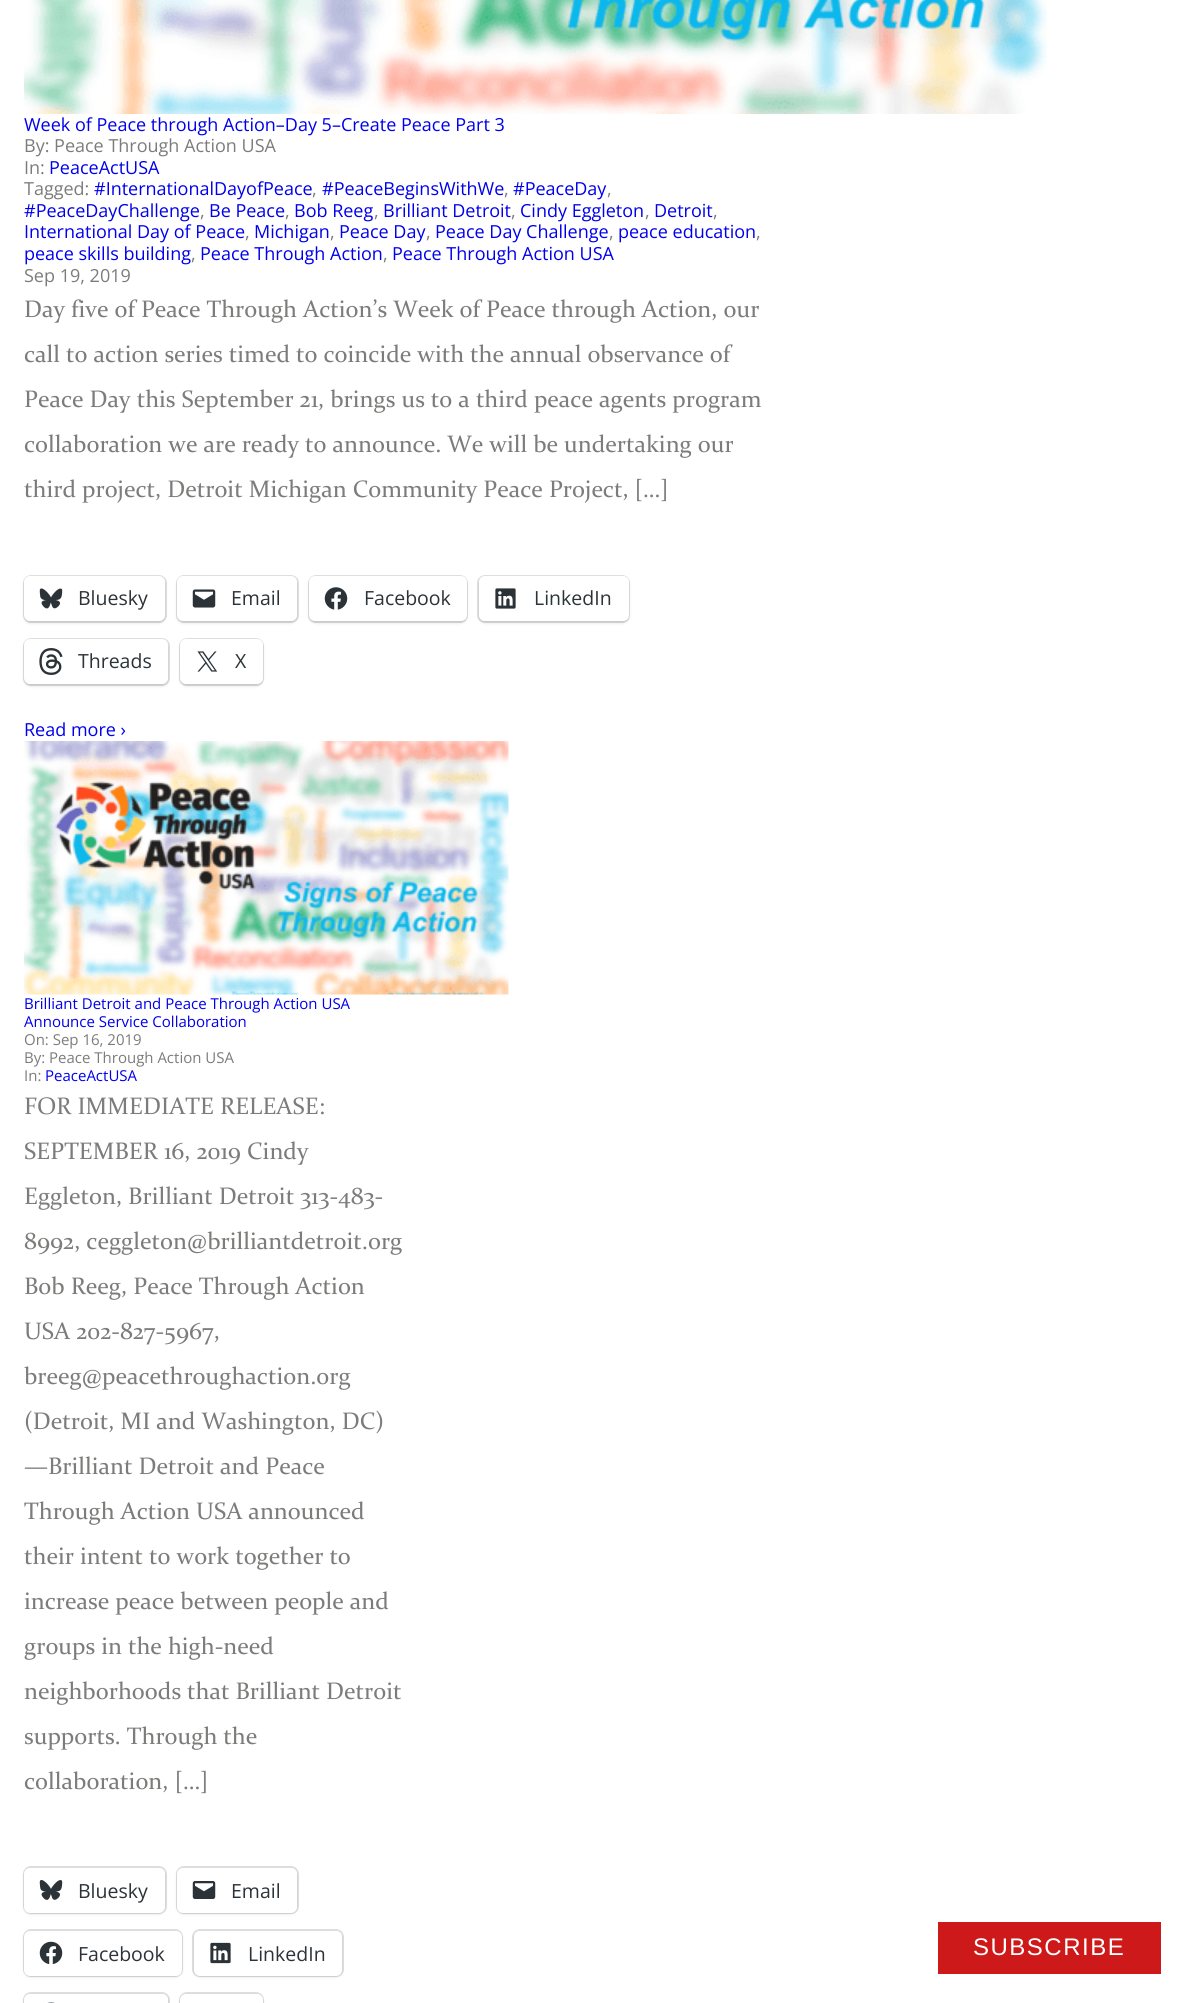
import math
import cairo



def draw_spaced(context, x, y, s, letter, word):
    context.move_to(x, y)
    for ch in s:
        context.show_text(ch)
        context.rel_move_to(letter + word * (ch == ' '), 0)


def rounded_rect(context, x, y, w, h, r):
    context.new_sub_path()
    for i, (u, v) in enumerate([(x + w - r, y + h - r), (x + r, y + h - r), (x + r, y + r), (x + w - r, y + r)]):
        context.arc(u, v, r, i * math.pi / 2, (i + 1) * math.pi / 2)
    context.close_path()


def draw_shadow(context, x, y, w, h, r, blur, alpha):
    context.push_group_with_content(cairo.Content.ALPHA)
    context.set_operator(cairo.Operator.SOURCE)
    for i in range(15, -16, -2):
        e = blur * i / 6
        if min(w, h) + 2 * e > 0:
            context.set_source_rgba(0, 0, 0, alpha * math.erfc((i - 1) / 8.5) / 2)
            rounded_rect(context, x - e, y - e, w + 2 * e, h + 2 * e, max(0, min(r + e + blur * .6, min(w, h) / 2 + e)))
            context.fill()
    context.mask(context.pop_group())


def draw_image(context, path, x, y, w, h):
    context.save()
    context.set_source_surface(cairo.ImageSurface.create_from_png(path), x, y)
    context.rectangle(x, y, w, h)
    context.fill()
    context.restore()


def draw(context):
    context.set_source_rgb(1, 1, 1)
    context.paint()
    draw_image(context, "images/1.png", 24, 0, 1023, 114)
    rounded_rect(context, 24, 576, 142, 46, 7)
    context.set_source_rgb(224 / 255, 224 / 255, 224 / 255)
    context.stroke()
    context.set_source_rgb(0, 0, 0)
    draw_shadow(context, 24, 578, 141, 45, 6, 1.5, 0.12)
    context.set_source_rgb(1, 1, 1)
    rounded_rect(context, 24, 576, 141, 45, 6)
    context.fill()
    draw_image(context, "images/2.png", 39, 588, 24, 21)
    rounded_rect(context, 177, 576, 121, 46, 7)
    context.set_source_rgb(224 / 255, 224 / 255, 224 / 255)
    context.stroke()
    context.set_source_rgb(0, 0, 0)
    draw_shadow(context, 177, 578, 120, 45, 6, 1.5, 0.12)
    context.set_source_rgb(1, 1, 1)
    rounded_rect(context, 177, 576, 120, 45, 6)
    context.fill()
    draw_image(context, "images/3.png", 192, 589, 24, 19)
    rounded_rect(context, 309, 576, 158, 46, 7)
    context.set_source_rgb(224 / 255, 224 / 255, 224 / 255)
    context.stroke()
    context.set_source_rgb(0, 0, 0)
    draw_shadow(context, 309, 578, 158, 45, 6, 1.5, 0.12)
    context.set_source_rgb(1, 1, 1)
    rounded_rect(context, 309, 576, 158, 45, 6)
    context.fill()
    draw_image(context, "images/4.png", 324, 587, 24, 23)
    rounded_rect(context, 478, 576, 151, 46, 7)
    context.set_source_rgb(224 / 255, 224 / 255, 224 / 255)
    context.stroke()
    context.set_source_rgb(0, 0, 0)
    draw_shadow(context, 479, 578, 150, 45, 6, 1.5, 0.12)
    context.set_source_rgb(1, 1, 1)
    rounded_rect(context, 479, 576, 150, 45, 6)
    context.fill()
    draw_image(context, "images/5.png", 495, 588, 21, 21)
    rounded_rect(context, 24, 639, 145, 46, 7)
    context.set_source_rgb(224 / 255, 224 / 255, 224 / 255)
    context.stroke()
    context.set_source_rgb(0, 0, 0)
    draw_shadow(context, 24, 641, 144, 45, 6, 1.5, 0.12)
    context.set_source_rgb(1, 1, 1)
    rounded_rect(context, 24, 639, 144, 45, 6)
    context.fill()
    draw_image(context, "images/6.png", 39, 648, 24, 27)
    rounded_rect(context, 180, 639, 83, 46, 7)
    context.set_source_rgb(224 / 255, 224 / 255, 224 / 255)
    context.stroke()
    context.set_source_rgb(0, 0, 0)
    draw_shadow(context, 180, 641, 83, 45, 6, 1.5, 0.12)
    context.set_source_rgb(1, 1, 1)
    rounded_rect(context, 180, 639, 83, 45, 6)
    context.fill()
    draw_image(context, "images/7.png", 197, 651, 21, 21)
    draw_image(context, "images/8.png", 24, 741, 485, 254)
    rounded_rect(context, 24, 1867, 142, 46, 7)
    context.set_source_rgb(224 / 255, 224 / 255, 224 / 255)
    context.stroke()
    context.set_source_rgb(0, 0, 0)
    draw_shadow(context, 24, 1869, 141, 45, 6, 1.5, 0.12)
    context.set_source_rgb(1, 1, 1)
    rounded_rect(context, 24, 1868, 141, 45, 6)
    context.fill()
    draw_image(context, "images/9.png", 39, 1880, 24, 20)
    rounded_rect(context, 177, 1867, 121, 46, 7)
    context.set_source_rgb(224 / 255, 224 / 255, 224 / 255)
    context.stroke()
    context.set_source_rgb(0, 0, 0)
    draw_shadow(context, 177, 1869, 120, 45, 6, 1.5, 0.12)
    context.set_source_rgb(1, 1, 1)
    rounded_rect(context, 177, 1868, 120, 45, 6)
    context.fill()
    draw_image(context, "images/10.png", 192, 1881, 24, 18)
    rounded_rect(context, 24, 1930, 158, 46, 7)
    context.set_source_rgb(224 / 255, 224 / 255, 224 / 255)
    context.stroke()
    context.set_source_rgb(0, 0, 0)
    draw_shadow(context, 24, 1932, 158, 45, 6, 1.5, 0.12)
    context.set_source_rgb(1, 1, 1)
    rounded_rect(context, 24, 1931, 158, 45, 6)
    context.fill()
    draw_image(context, "images/11.png", 39, 1941, 24, 23)
    rounded_rect(context, 193, 1930, 150, 46, 7)
    context.set_source_rgb(224 / 255, 224 / 255, 224 / 255)
    context.stroke()
    context.set_source_rgb(0, 0, 0)
    draw_shadow(context, 194, 1932, 148, 45, 6, 1.5, 0.12)
    context.set_source_rgb(1, 1, 1)
    rounded_rect(context, 194, 1931, 148, 45, 6)
    context.fill()
    draw_image(context, "images/12.png", 210, 1942, 21, 22)
    rounded_rect(context, 24, 1993, 145, 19, 7)
    context.set_source_rgb(224 / 255, 224 / 255, 224 / 255)
    context.stroke()
    context.set_source_rgb(0, 0, 0)
    draw_shadow(context, 24, 1995, 144, 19, 6, 1.5, 0.12)
    context.set_source_rgb(1, 1, 1)
    rounded_rect(context, 24, 1994, 144, 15, 6)
    context.fill()
    draw_image(context, "images/13.png", 47, 2002, 8, 1)
    rounded_rect(context, 180, 1993, 83, 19, 7)
    context.set_source_rgb(224 / 255, 224 / 255, 224 / 255)
    context.stroke()
    context.set_source_rgb(0, 0, 0)
    draw_shadow(context, 180, 1995, 83, 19, 6, 1.5, 0.12)
    context.set_source_rgb(1, 1, 1)
    rounded_rect(context, 180, 1994, 83, 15, 6)
    context.fill()
    context.set_source_rgb(205 / 255, 25 / 255, 25 / 255)
    context.rectangle(938, 1922, 223, 52)
    context.fill()
    context.select_font_face("Open Sans")
    context.set_font_size(18)
    context.set_source_rgb(0, 0, 238 / 255)
    context.move_to(24, 131)
    context.show_text("Week of Peace through Action–Day 5–Create Peace Part 3")
    context.set_source_rgb(124 / 255, 124 / 255, 123 / 255)
    context.move_to(24, 152)
    context.show_text("By: Peace Through Action USA")
    context.move_to(24, 174)
    context.show_text("In:")
    context.set_source_rgb(0, 0, 238 / 255)
    context.move_to(49, 174)
    context.show_text("PeaceActUSA")
    context.set_source_rgb(124 / 255, 124 / 255, 123 / 255)
    context.move_to(24, 195)
    context.show_text("Tagged:")
    context.set_source_rgb(0, 0, 238 / 255)
    context.move_to(94, 195)
    context.show_text("#InternationalDayofPeace")
    context.set_source_rgb(124 / 255, 124 / 255, 123 / 255)
    context.move_to(312, 195)
    context.show_text(",")
    context.set_source_rgb(0, 0, 238 / 255)
    context.move_to(322, 195)
    context.show_text("#PeaceBeginsWithWe")
    context.set_source_rgb(124 / 255, 124 / 255, 123 / 255)
    context.move_to(504, 195)
    context.show_text(",")
    context.set_source_rgb(0, 0, 238 / 255)
    context.move_to(513, 195)
    context.show_text("#PeaceDay")
    context.set_source_rgb(124 / 255, 124 / 255, 123 / 255)
    context.move_to(607, 195)
    context.show_text(",")
    context.set_source_rgb(0, 0, 238 / 255)
    context.move_to(24, 217)
    context.show_text("#PeaceDayChallenge")
    context.set_source_rgb(124 / 255, 124 / 255, 123 / 255)
    context.move_to(200, 217)
    context.show_text(",")
    context.set_source_rgb(0, 0, 238 / 255)
    context.move_to(209, 217)
    context.show_text("Be Peace")
    context.set_source_rgb(124 / 255, 124 / 255, 123 / 255)
    context.move_to(285, 217)
    context.show_text(",")
    context.set_source_rgb(0, 0, 238 / 255)
    context.move_to(294, 217)
    context.show_text("Bob Reeg")
    context.set_source_rgb(124 / 255, 124 / 255, 123 / 255)
    context.move_to(374, 217)
    context.show_text(",")
    context.set_source_rgb(0, 0, 238 / 255)
    context.move_to(383, 217)
    context.show_text("Brilliant Detroit")
    context.set_source_rgb(124 / 255, 124 / 255, 123 / 255)
    context.move_to(511, 217)
    context.show_text(",")
    context.set_source_rgb(0, 0, 238 / 255)
    context.move_to(520, 217)
    context.show_text("Cindy Eggleton")
    context.set_source_rgb(124 / 255, 124 / 255, 123 / 255)
    context.move_to(645, 217)
    context.show_text(",")
    context.set_source_rgb(0, 0, 238 / 255)
    context.move_to(654, 217)
    context.show_text("Detroit")
    context.set_source_rgb(124 / 255, 124 / 255, 123 / 255)
    context.move_to(713, 217)
    context.show_text(",")
    context.set_source_rgb(0, 0, 238 / 255)
    context.move_to(24, 238)
    context.show_text("International Day of Peace")
    context.set_source_rgb(124 / 255, 124 / 255, 123 / 255)
    context.move_to(245, 238)
    context.show_text(",")
    context.set_source_rgb(0, 0, 238 / 255)
    context.move_to(254, 238)
    context.show_text("Michigan")
    context.set_source_rgb(124 / 255, 124 / 255, 123 / 255)
    context.move_to(330, 238)
    context.show_text(",")
    context.set_source_rgb(0, 0, 238 / 255)
    context.move_to(339, 238)
    context.show_text("Peace Day")
    context.set_source_rgb(124 / 255, 124 / 255, 123 / 255)
    context.move_to(426, 238)
    context.show_text(",")
    context.set_source_rgb(0, 0, 238 / 255)
    context.move_to(435, 238)
    context.show_text("Peace Day Challenge")
    context.set_source_rgb(124 / 255, 124 / 255, 123 / 255)
    context.move_to(609, 238)
    context.show_text(",")
    context.set_source_rgb(0, 0, 238 / 255)
    context.move_to(618, 238)
    context.show_text("peace education")
    context.set_source_rgb(124 / 255, 124 / 255, 123 / 255)
    context.move_to(756, 238)
    context.show_text(",")
    context.set_source_rgb(0, 0, 238 / 255)
    context.move_to(24, 260)
    context.show_text("peace skills building")
    context.set_source_rgb(124 / 255, 124 / 255, 123 / 255)
    context.move_to(191, 260)
    context.show_text(",")
    context.set_source_rgb(0, 0, 238 / 255)
    context.move_to(200, 260)
    context.show_text("Peace Through Action")
    context.set_source_rgb(124 / 255, 124 / 255, 123 / 255)
    context.move_to(383, 260)
    context.show_text(",")
    context.set_source_rgb(0, 0, 238 / 255)
    context.move_to(392, 260)
    context.show_text("Peace Through Action USA")
    context.set_source_rgb(124 / 255, 124 / 255, 123 / 255)
    context.move_to(24, 282)
    context.show_text("Sep 19, 2019")
    context.select_font_face("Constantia")
    context.set_font_size(24)
    context.move_to(24, 317)
    context.show_text("Day five of Peace Through Action’s Week of Peace through Action, our")
    context.move_to(24, 362)
    context.show_text("call to action series timed to coincide with the annual observance of")
    context.move_to(24, 407)
    context.show_text("Peace Day this September 21, brings us to a third peace agents program")
    context.move_to(24, 452)
    context.show_text("collaboration we are ready to announce. We will be undertaking our")
    context.move_to(24, 497)
    context.show_text("third project, Detroit Michigan Community Peace Project, […]")
    context.select_font_face("Open Sans")
    context.set_font_size(19.5)
    context.set_source_rgb(44 / 255, 51 / 255, 56 / 255)
    context.move_to(78, 605)
    context.show_text("Bluesky")
    context.move_to(231, 605)
    context.show_text("Email")
    context.move_to(364, 605)
    context.show_text("Facebook")
    context.move_to(534, 605)
    context.show_text("LinkedIn")
    context.move_to(78, 668)
    context.show_text("Threads")
    context.move_to(235, 668)
    context.show_text("X")
    context.set_font_size(18)
    context.set_source_rgb(0, 0, 238 / 255)
    context.move_to(24, 736)
    context.show_text("Read more ›")
    context.set_font_size(15)
    context.move_to(24, 1009)
    context.show_text("Brilliant Detroit and Peace Through Action USA")
    context.move_to(24, 1027)
    context.show_text("Announce Service Collaboration")
    context.set_source_rgb(124 / 255, 124 / 255, 123 / 255)
    context.move_to(24, 1045)
    context.show_text("On: Sep 16, 2019")
    context.move_to(24, 1063)
    context.show_text("By: Peace Through Action USA")
    context.move_to(24, 1081)
    context.show_text("In:")
    context.set_source_rgb(0, 0, 238 / 255)
    context.move_to(45, 1081)
    context.show_text("PeaceActUSA")
    context.select_font_face("Constantia")
    context.set_font_size(24)
    context.set_source_rgb(124 / 255, 124 / 255, 123 / 255)
    context.move_to(24, 1114)
    context.show_text("FOR IMMEDIATE RELEASE:")
    context.move_to(24, 1159)
    context.show_text("SEPTEMBER 16, 2019 Cindy")
    context.move_to(24, 1204)
    context.show_text("Eggleton, Brilliant Detroit 313-483-")
    context.move_to(24, 1249)
    context.show_text("8992, ceggleton@brilliantdetroit.org")
    context.move_to(24, 1294)
    context.show_text("Bob Reeg, Peace Through Action")
    context.move_to(24, 1339)
    context.show_text("USA 202-827-5967,")
    context.move_to(24, 1384)
    context.show_text("breeg@peacethroughaction.org")
    context.move_to(24, 1429)
    context.show_text("(Detroit, MI and Washington, DC)")
    context.move_to(24, 1474)
    context.show_text("—Brilliant Detroit and Peace")
    context.move_to(24, 1519)
    context.show_text("Through Action USA announced")
    context.move_to(24, 1564)
    context.show_text("their intent to work together to")
    context.move_to(24, 1609)
    context.show_text("increase peace between people and")
    context.move_to(24, 1654)
    context.show_text("groups in the high-need")
    context.move_to(24, 1699)
    context.show_text("neighborhoods that Brilliant Detroit")
    context.move_to(24, 1744)
    context.show_text("supports. Through the")
    context.move_to(24, 1789)
    context.show_text("collaboration, […]")
    context.select_font_face("Open Sans")
    context.set_font_size(19.5)
    context.set_source_rgb(44 / 255, 51 / 255, 56 / 255)
    context.move_to(78, 1898)
    context.show_text("Bluesky")
    context.move_to(231, 1898)
    context.show_text("Email")
    context.move_to(78, 1961)
    context.show_text("Facebook")
    context.move_to(248, 1961)
    context.show_text("LinkedIn")
    context.select_font_face("Liberation Sans")
    context.set_font_size(24)
    context.set_source_rgb(1, 1, 1)
    draw_spaced(context, 973, 1955, "SUBSCRIBE", 1.5, 0)


surface = cairo.ImageSurface(cairo.Format.RGB24, 1191, 2003)
context = cairo.Context(surface)
options = cairo.FontOptions()
options.set_hint_metrics(cairo.HintMetrics.OFF)
options.set_hint_style(cairo.HintStyle.NONE)
context.set_font_options(options)
context.set_miter_limit(4)
draw(context)
surface.write_to_png("out.png")
